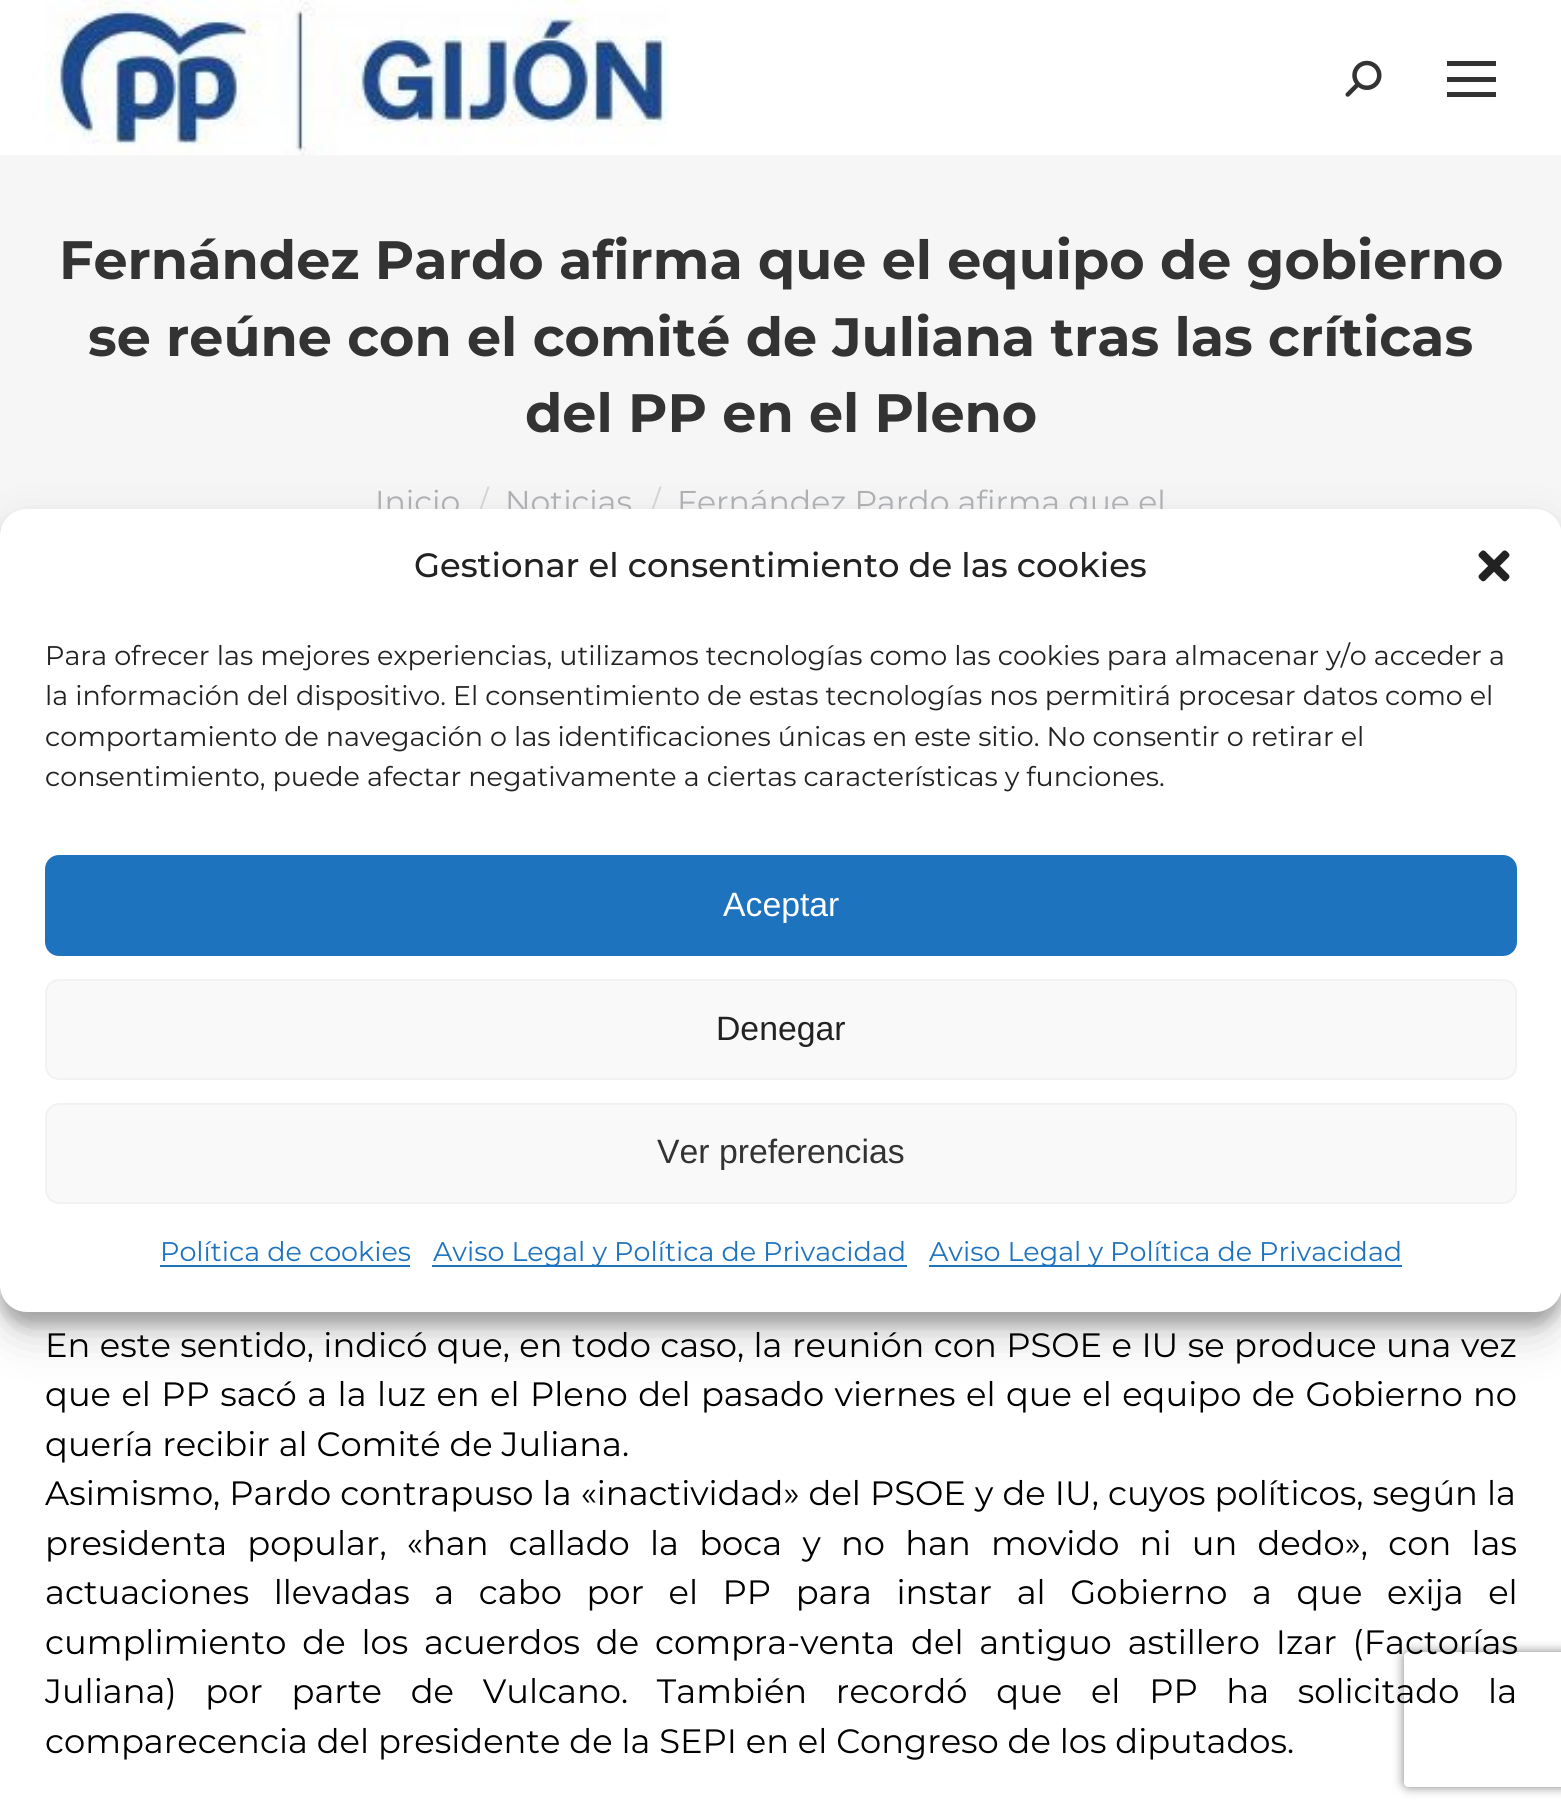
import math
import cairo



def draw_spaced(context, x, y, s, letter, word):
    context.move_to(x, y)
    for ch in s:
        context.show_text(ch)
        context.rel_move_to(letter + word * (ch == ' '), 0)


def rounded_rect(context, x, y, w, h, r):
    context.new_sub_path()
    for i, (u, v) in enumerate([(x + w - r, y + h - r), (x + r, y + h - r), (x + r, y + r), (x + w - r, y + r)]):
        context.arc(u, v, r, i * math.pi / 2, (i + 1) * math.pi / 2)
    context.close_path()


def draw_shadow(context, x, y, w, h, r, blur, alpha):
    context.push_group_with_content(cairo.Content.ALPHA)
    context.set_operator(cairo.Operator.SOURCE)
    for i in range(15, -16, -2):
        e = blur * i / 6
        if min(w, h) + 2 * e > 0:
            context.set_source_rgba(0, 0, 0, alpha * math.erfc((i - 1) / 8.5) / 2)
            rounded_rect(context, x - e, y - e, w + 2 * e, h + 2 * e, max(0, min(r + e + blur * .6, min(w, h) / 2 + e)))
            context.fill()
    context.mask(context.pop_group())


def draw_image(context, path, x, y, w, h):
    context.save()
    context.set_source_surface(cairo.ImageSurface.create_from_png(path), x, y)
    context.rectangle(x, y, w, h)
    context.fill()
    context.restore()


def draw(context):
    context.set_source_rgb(1, 1, 1)
    context.paint()
    context.set_source_rgb(246 / 255, 246 / 255, 246 / 255)
    context.rectangle(0, 155, 1561, 381)
    context.fill()
    draw_image(context, "images/1.png", 45, 0, 624, 156)
    draw_image(context, "images/2.png", 1345, 60, 37, 37)
    context.set_source_rgb(51 / 255, 51 / 255, 51 / 255)
    context.rectangle(1447, 61, 49, 5)
    context.fill()
    context.rectangle(1447, 77, 49, 5)
    context.fill()
    context.rectangle(1447, 92, 49, 5)
    context.fill()
    context.set_source_rgb(0, 0, 0)
    draw_shadow(context, 0, 522, 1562, 803, 27, 7, 0.23)
    draw_shadow(context, 0, 531, 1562, 803, 27, 22.5, 0.19)
    context.save()
    context.set_fill_rule(cairo.FillRule.EVEN_ODD)
    context.new_path()
    context.move_to(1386, 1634)
    context.line_to(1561, 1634)
    context.line_to(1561, 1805)
    context.line_to(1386, 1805)
    context.close_path()
    context.move_to(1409, 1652)
    context.line_to(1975, 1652)
    context.curve_to(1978, 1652, 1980, 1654, 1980, 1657)
    context.line_to(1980, 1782)
    context.curve_to(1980, 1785, 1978, 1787, 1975, 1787)
    context.line_to(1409, 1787)
    context.curve_to(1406, 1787, 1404, 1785, 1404, 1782)
    context.line_to(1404, 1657)
    context.curve_to(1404, 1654, 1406, 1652, 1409, 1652)
    context.close_path()
    context.clip()
    context.set_source_rgb(128 / 255, 128 / 255, 128 / 255)
    draw_shadow(context, 1404, 1652, 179, 135, 5, 5.5, 1)
    context.restore()
    context.select_font_face("Montserrat", cairo.FontSlant.NORMAL, cairo.FontWeight.BOLD)
    context.set_font_size(54)
    context.set_source_rgb(51 / 255, 51 / 255, 51 / 255)
    context.move_to(59, 279)
    context.show_text("Fernández Pardo afirma que el equipo de gobierno")
    context.move_to(88, 356)
    context.show_text("se reúne con el comité de Juliana tras las críticas")
    context.move_to(525, 432)
    context.show_text("del PP en el Pleno")
    context.select_font_face("Montserrat")
    context.set_font_size(31.5)
    context.set_source_rgb(173 / 255, 175 / 255, 179 / 255)
    context.move_to(375, 513)
    context.show_text("Inicio")
    context.set_source_rgb(210 / 255, 211 / 255, 213 / 255)
    context.move_to(478, 513)
    context.show_text("/")
    context.set_source_rgb(173 / 255, 175 / 255, 179 / 255)
    context.move_to(505, 513)
    context.show_text("Noticias")
    context.set_source_rgb(210 / 255, 211 / 255, 213 / 255)
    context.move_to(650, 513)
    context.show_text("/")
    context.set_source_rgb(173 / 255, 175 / 255, 179 / 255)
    context.move_to(677, 513)
    context.show_text("Fernández Pardo afirma que el")
    context.set_font_size(33.75)
    context.set_source_rgb(0, 0, 0)
    draw_spaced(context, 45, 1357, "En este sentido, indicó que, en todo caso, la reunión con PSOE e IU se produce una vez", 0, 0.6)
    draw_spaced(context, 45, 1406, "que el PP sacó a la luz en el Pleno del pasado viernes el que el equipo de Gobierno no", 0, 1.6)
    context.move_to(45, 1456)
    context.show_text("quería recibir al Comité de Juliana.")
    draw_spaced(context, 45, 1505, "Asimismo, Pardo contrapuso la «inactividad» del PSOE y de IU, cuyos políticos, según la", 0, 0.25)
    draw_spaced(context, 45, 1555, "presidenta popular, «han callado la boca y no han movido ni un dedo», con las", 0, 11.4)
    draw_spaced(context, 45, 1604, "actuaciones llevadas a cabo por el PP para instar al Gobierno a que exija el", 0, 15.75)
    draw_spaced(context, 45, 1654, "cumplimiento de los acuerdos de compra-venta del antiguo astillero Izar (Factorías", 0, 7)
    draw_spaced(context, 45, 1703, "Juliana) por parte de Vulcano. También recordó que el PP ha solicitado la", 0, 19.9)
    context.move_to(45, 1753)
    context.show_text("comparecencia del presidente de la SEPI en el Congreso de los diputados.")
    context.set_source_rgb(1, 1, 1)
    rounded_rect(context, 0, 509, 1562, 803, 27)
    context.fill()
    context.select_font_face("Montserrat Medium")
    context.set_source_rgb(34 / 255, 34 / 255, 34 / 255)
    context.move_to(414, 577)
    context.show_text("Gestionar el consentimiento de las cookies")
    draw_image(context, "images/3.png", 1478, 550, 32, 32)
    context.select_font_face("Montserrat")
    context.set_font_size(27)
    context.move_to(45, 665)
    context.show_text("Para ofrecer las mejores experiencias, utilizamos tecnologías como las cookies para almacenar y/o acceder a")
    context.move_to(45, 705)
    context.show_text("la información del dispositivo. El consentimiento de estas tecnologías nos permitirá procesar datos como el")
    context.move_to(45, 746)
    context.show_text("comportamiento de navegación o las identificaciones únicas en este sitio. No consentir o retirar el")
    context.move_to(45, 786)
    context.show_text("consentimiento, puede afectar negativamente a ciertas características y funciones.")
    context.set_source_rgb(30 / 255, 115 / 255, 190 / 255)
    rounded_rect(context, 46, 856, 1470, 99, 13)
    context.fill_preserve()
    context.stroke()
    context.select_font_face("Liberation Sans")
    context.set_font_size(33.75)
    context.set_source_rgb(1, 1, 1)
    context.move_to(723, 916)
    context.show_text("Aceptar")
    context.set_source_rgb(249 / 255, 249 / 255, 249 / 255)
    rounded_rect(context, 46, 980, 1470, 99, 13)
    context.fill_preserve()
    context.set_source_rgb(242 / 255, 242 / 255, 242 / 255)
    context.stroke()
    context.set_source_rgb(34 / 255, 34 / 255, 34 / 255)
    context.move_to(716, 1040)
    context.show_text("Denegar")
    context.set_source_rgb(249 / 255, 249 / 255, 249 / 255)
    rounded_rect(context, 46, 1104, 1470, 99, 13)
    context.fill_preserve()
    context.set_source_rgb(242 / 255, 242 / 255, 242 / 255)
    context.stroke()
    context.set_source_rgb(51 / 255, 51 / 255, 51 / 255)
    context.move_to(657, 1163)
    context.show_text("Ver preferencias")
    context.select_font_face("Montserrat")
    context.set_font_size(27)
    context.set_source_rgb(30 / 255, 115 / 255, 190 / 255)
    context.move_to(160, 1261)
    context.show_text("Política de cookies")
    context.rectangle(160, 1265, 250, 2)
    context.fill()
    context.rectangle(432, 1265, 475, 2)
    context.fill()
    context.move_to(433, 1261)
    context.show_text("Aviso Legal y Política de Privacidad")
    context.rectangle(929, 1265, 473, 2)
    context.fill()
    context.move_to(929, 1261)
    context.show_text("Aviso Legal y Política de Privacidad")


surface = cairo.ImageSurface(cairo.Format.RGB24, 1561, 1816)
context = cairo.Context(surface)
options = cairo.FontOptions()
options.set_hint_metrics(cairo.HintMetrics.OFF)
options.set_hint_style(cairo.HintStyle.NONE)
context.set_font_options(options)
context.set_miter_limit(4)
draw(context)
surface.write_to_png("out.png")
